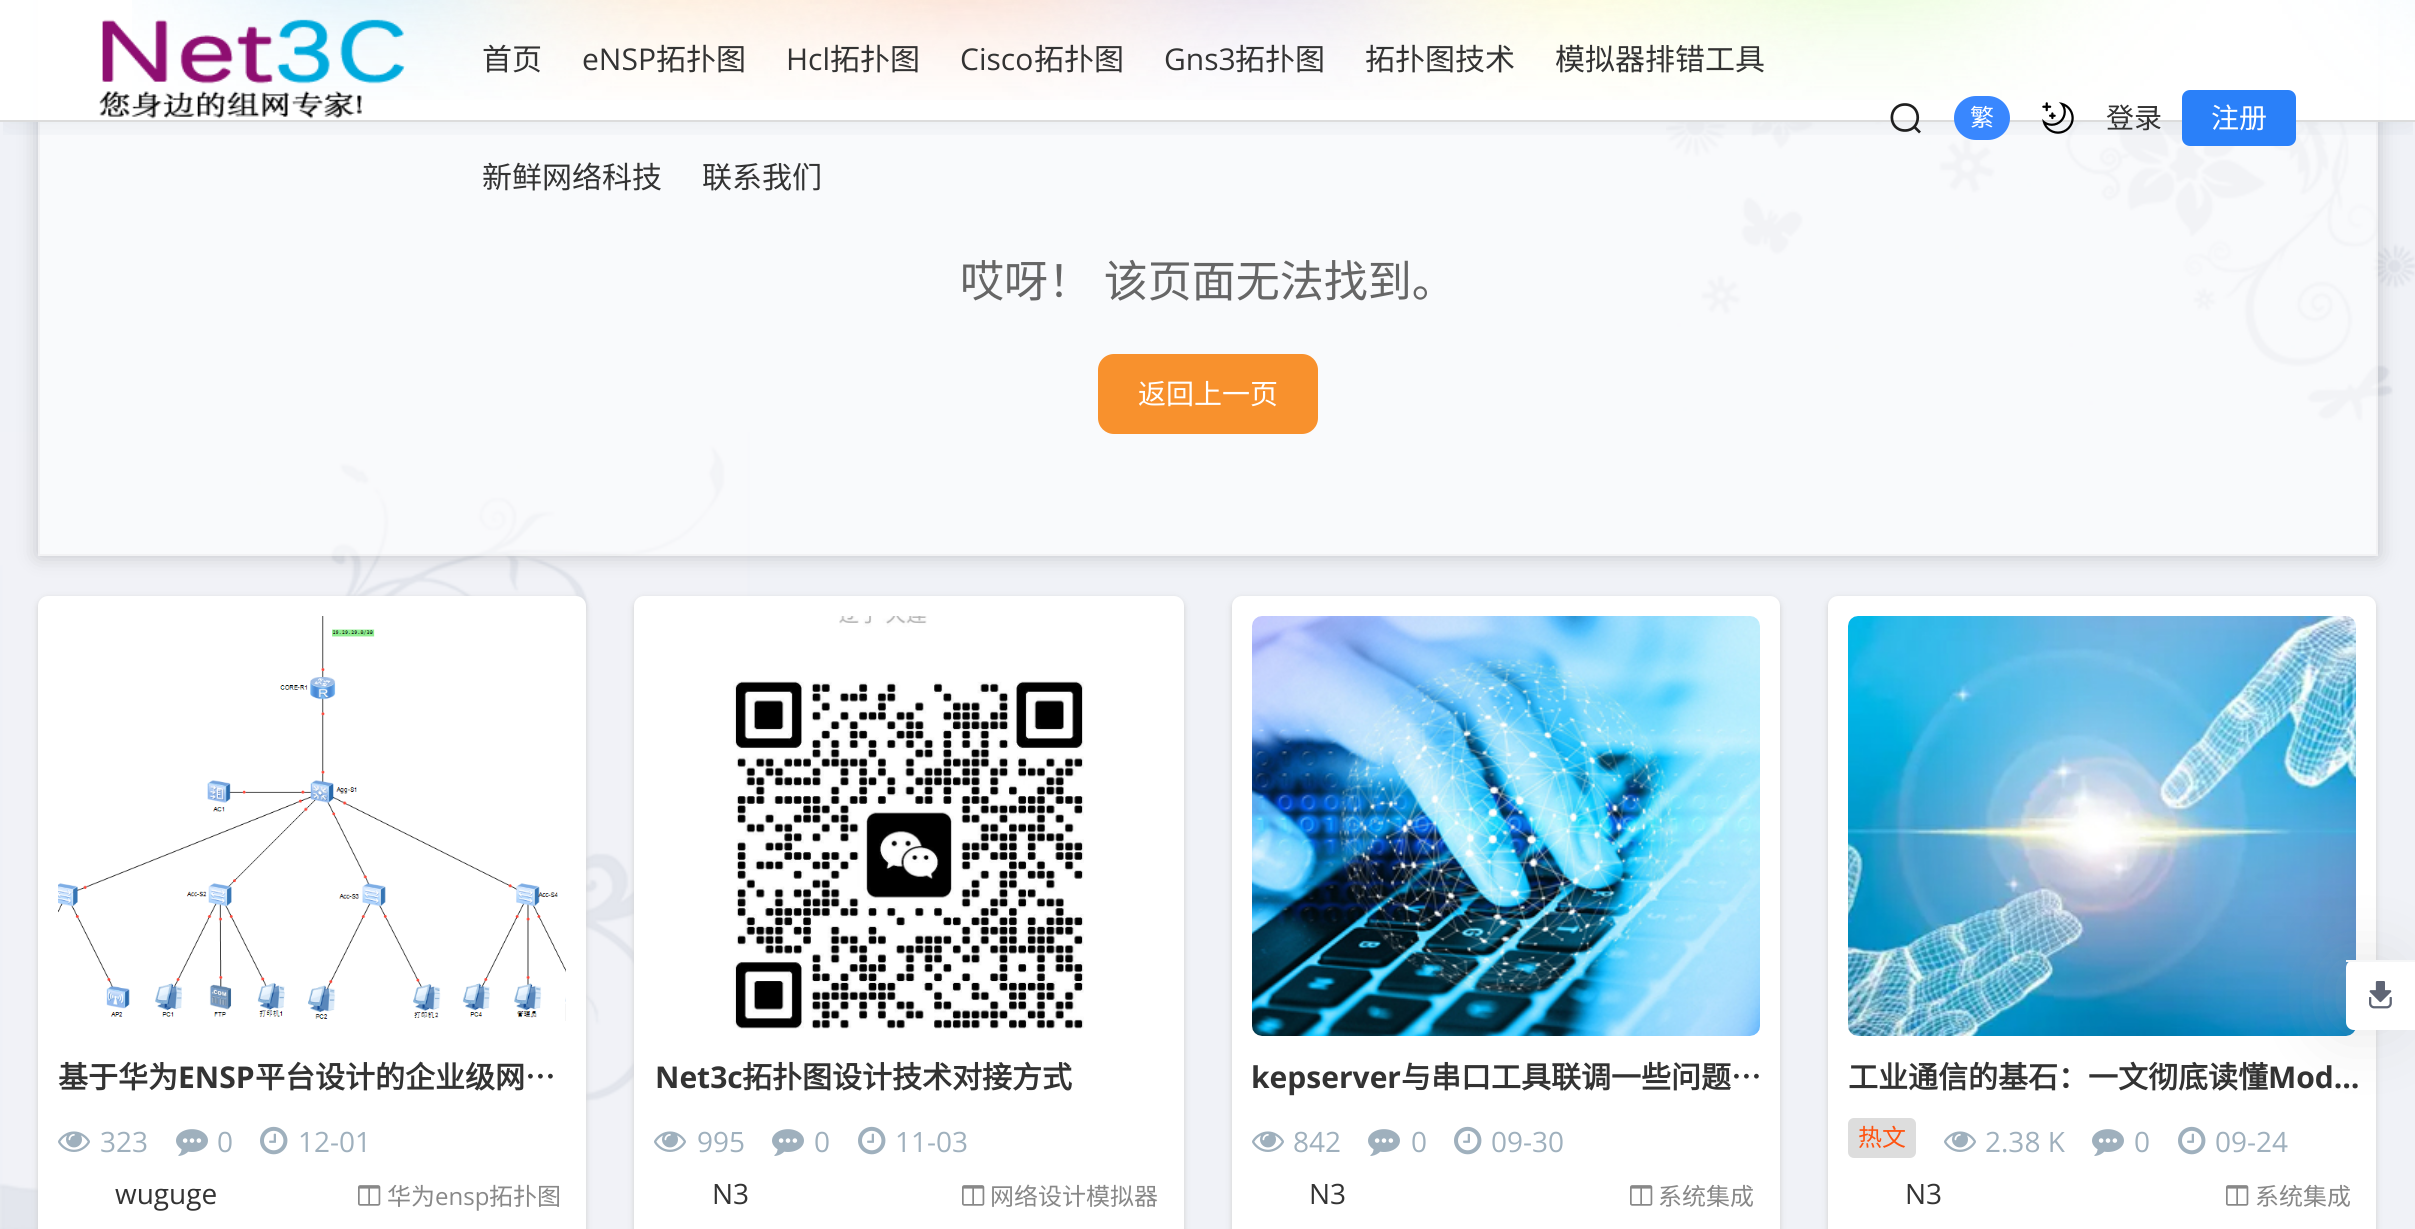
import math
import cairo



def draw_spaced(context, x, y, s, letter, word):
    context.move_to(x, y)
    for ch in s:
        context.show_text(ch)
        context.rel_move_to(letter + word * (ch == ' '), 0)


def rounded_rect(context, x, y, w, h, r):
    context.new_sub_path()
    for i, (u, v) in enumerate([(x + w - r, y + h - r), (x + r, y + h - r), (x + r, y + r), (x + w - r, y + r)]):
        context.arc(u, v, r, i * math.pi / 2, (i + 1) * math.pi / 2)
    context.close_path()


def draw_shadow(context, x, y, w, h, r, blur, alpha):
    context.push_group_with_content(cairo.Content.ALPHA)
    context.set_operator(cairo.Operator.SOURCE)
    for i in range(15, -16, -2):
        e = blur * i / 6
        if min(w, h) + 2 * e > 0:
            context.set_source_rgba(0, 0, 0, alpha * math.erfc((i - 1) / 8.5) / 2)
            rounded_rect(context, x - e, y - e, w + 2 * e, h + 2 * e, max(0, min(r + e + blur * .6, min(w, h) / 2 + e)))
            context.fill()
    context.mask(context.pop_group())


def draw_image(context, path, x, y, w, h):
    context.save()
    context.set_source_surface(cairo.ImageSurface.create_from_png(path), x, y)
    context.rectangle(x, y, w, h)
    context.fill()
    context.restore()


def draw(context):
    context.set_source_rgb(240 / 255, 242 / 255, 247 / 255)
    context.paint()
    draw_image(context, "images/1.png", 0, 6, 2415, 1223)
    context.save()
    context.set_fill_rule(cairo.FillRule.EVEN_ODD)
    context.new_path()
    context.move_to(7, 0)
    context.line_to(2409, 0)
    context.line_to(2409, 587)
    context.line_to(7, 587)
    context.close_path()
    context.move_to(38, -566)
    context.line_to(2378, -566)
    context.line_to(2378, 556)
    context.line_to(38, 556)
    context.close_path()
    context.clip()
    context.set_source_rgb(0, 0, 0)
    draw_shadow(context, 38, -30, 2340, 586, 0, 10, 0.2)
    context.restore()
    context.set_source_rgba(1, 1, 1, 0.58)
    context.rectangle(38, 0, 2340, 556)
    context.fill()
    context.rectangle(39, -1, 2338, 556)
    context.set_source_rgba(221 / 255, 221 / 255, 221 / 255, 0.28)
    context.stroke()
    context.save()
    context.rectangle(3, 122, 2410, 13)
    context.clip()
    context.set_source_rgb(17 / 255, 58 / 255, 93 / 255)
    draw_shadow(context, 6, 12, 2404, 110, 0, 15, 0.1)
    context.restore()
    context.set_source_rgba(1, 1, 1, 0.98)
    context.rectangle(0, 0, 2415, 122)
    context.fill()
    draw_image(context, "images/2.png", 132, 0, 2283, 100)
    context.set_source_rgba(34 / 255, 34 / 255, 34 / 255, 0.16)
    context.rectangle(0, 120, 2415, 2)
    context.fill()
    draw_image(context, "images/3.png", 99, 19, 306, 100)
    context.new_path()
    context.move_to(1905, 130.5)
    context.curve_to(1922, 130.5, 1922, 104.5, 1905, 104.5)
    context.curve_to(1887.5, 104.5, 1887.5, 130.5, 1905, 130.5)
    context.close_path()
    context.move_to(1914, 126.5)
    context.line_to(1920, 132.5)
    context.set_source_rgb(31 / 255, 31 / 255, 31 / 255)
    context.set_line_width(2.7)
    context.set_line_join(cairo.LineJoin.ROUND)
    context.stroke()
    context.set_source_rgb(57 / 255, 135 / 255, 254 / 255)
    rounded_rect(context, 1954, 96, 56, 44, 22)
    context.fill()
    draw_image(context, "images/4.png", 2042, 102, 32, 32)
    context.set_source_rgb(42 / 255, 128 / 255, 249 / 255)
    rounded_rect(context, 2182, 90, 114, 56, 8)
    context.fill()
    context.set_source_rgb(248 / 255, 145 / 255, 45 / 255)
    rounded_rect(context, 1098, 354, 220, 80, 16)
    context.fill()
    context.set_source_rgb(206 / 255, 206 / 255, 206 / 255)
    draw_shadow(context, 38, 598, 548, 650, 10, 3, 1)
    context.set_source_rgb(1, 1, 1)
    rounded_rect(context, 38, 596, 548, 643, 10)
    context.fill()
    draw_image(context, "images/5.png", 58, 616, 508, 405)
    draw_image(context, "images/6.png", 58, 1131, 32, 21)
    draw_image(context, "images/7.png", 176, 1129, 32, 27)
    draw_image(context, "images/8.png", 260, 1126, 28, 29)
    draw_image(context, "images/9.png", 358, 1185, 23, 21)
    context.set_source_rgb(206 / 255, 206 / 255, 206 / 255)
    draw_shadow(context, 634, 598, 550, 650, 10, 3, 1)
    context.set_source_rgb(1, 1, 1)
    rounded_rect(context, 634, 596, 550, 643, 10)
    context.fill()
    draw_image(context, "images/10.png", 733, 616, 351, 413)
    draw_image(context, "images/6.png", 654, 1131, 32, 21)
    draw_image(context, "images/7.png", 772, 1129, 32, 27)
    draw_image(context, "images/8.png", 858, 1126, 28, 29)
    draw_image(context, "images/9.png", 962, 1185, 23, 21)
    context.set_source_rgb(206 / 255, 206 / 255, 206 / 255)
    draw_shadow(context, 1232, 598, 548, 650, 10, 3, 1)
    context.set_source_rgb(1, 1, 1)
    rounded_rect(context, 1232, 596, 548, 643, 10)
    context.fill()
    draw_image(context, "images/11.png", 1252, 616, 508, 420)
    draw_image(context, "images/6.png", 1252, 1131, 32, 21)
    draw_image(context, "images/7.png", 1368, 1129, 32, 27)
    draw_image(context, "images/8.png", 1454, 1126, 28, 29)
    draw_image(context, "images/9.png", 1630, 1185, 23, 21)
    context.set_source_rgb(206 / 255, 206 / 255, 206 / 255)
    draw_shadow(context, 1828, 598, 548, 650, 10, 3, 1)
    context.set_source_rgb(1, 1, 1)
    rounded_rect(context, 1828, 596, 548, 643, 10)
    context.fill()
    draw_image(context, "images/12.png", 1848, 616, 508, 420)
    context.set_source_rgb(221 / 255, 221 / 255, 221 / 255)
    rounded_rect(context, 1848, 1118, 68, 40, 6)
    context.fill()
    draw_image(context, "images/6.png", 1944, 1131, 32, 21)
    draw_image(context, "images/7.png", 2092, 1129, 32, 27)
    draw_image(context, "images/8.png", 2178, 1126, 28, 29)
    draw_image(context, "images/9.png", 2226, 1185, 23, 21)
    context.set_source_rgb(181 / 255, 181 / 255, 181 / 255)
    draw_shadow(context, 2330, 960, 70, 70, 8, 35, 0.32)
    context.set_source_rgb(1, 1, 1)
    context.new_path()
    context.move_to(2354, 960)
    context.line_to(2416, 960)
    context.line_to(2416, 1030)
    context.line_to(2354, 1030)
    context.curve_to(2349.5, 1030, 2346, 1026.5, 2346, 1022)
    context.line_to(2346, 968)
    context.curve_to(2346, 963.5, 2349.5, 960, 2354, 960)
    context.close_path()
    context.fill()
    context.set_source_rgb(245 / 255, 246 / 255, 247 / 255)
    context.rectangle(2346, 960, 69, 2)
    context.fill()
    draw_image(context, "images/13.png", 2369, 981, 23, 28)
    context.select_font_face("Noto Sans CJK SC")
    context.set_font_size(30)
    context.set_source_rgb(51 / 255, 51 / 255, 51 / 255)
    context.move_to(482, 70)
    context.show_text("首页")
    context.select_font_face("Open Sans")
    context.move_to(582, 70)
    context.show_text("eNSP")
    context.select_font_face("Noto Sans CJK SC")
    context.move_to(656, 70)
    context.show_text("拓扑图")
    context.select_font_face("Open Sans")
    context.move_to(786, 70)
    context.show_text("Hcl")
    context.select_font_face("Noto Sans CJK SC")
    context.move_to(830, 70)
    context.show_text("拓扑图")
    context.select_font_face("Open Sans")
    context.move_to(960, 70)
    context.show_text("Cisco")
    context.select_font_face("Noto Sans CJK SC")
    context.move_to(1034, 70)
    context.show_text("拓扑图")
    context.select_font_face("Open Sans")
    context.move_to(1164, 70)
    context.show_text("Gns3")
    context.select_font_face("Noto Sans CJK SC")
    context.move_to(1235, 70)
    context.show_text("拓扑图")
    context.move_to(1365, 70)
    context.show_text("拓扑图技术")
    context.move_to(1555, 70)
    context.show_text("模拟器排错工具")
    context.move_to(482, 188)
    context.show_text("新鲜网络科技")
    context.move_to(702, 188)
    context.show_text("联系我们")
    context.set_font_size(24)
    context.set_source_rgb(1, 1, 1)
    context.move_to(1970, 126)
    context.show_text("繁")
    context.set_font_size(28)
    context.set_source_rgb(51 / 255, 51 / 255, 51 / 255)
    context.move_to(2106, 128)
    context.show_text("登录")
    context.set_source_rgb(1, 1, 1)
    context.move_to(2211, 128)
    context.show_text("注册")
    context.set_font_size(44)
    context.set_source_rgb(102 / 255, 102 / 255, 102 / 255)
    draw_spaced(context, 960, 297, "哎呀！ 该页面无法找到。", 0, 2)
    context.set_font_size(28)
    context.set_source_rgb(1, 1, 1)
    context.move_to(1138, 404)
    context.show_text("返回上一页")
    context.select_font_face("Noto Sans CJK SC", cairo.FontSlant.NORMAL, cairo.FontWeight.BOLD)
    context.set_font_size(30)
    context.set_source_rgb(51 / 255, 51 / 255, 51 / 255)
    context.move_to(58, 1088)
    context.show_text("基于华为")
    context.select_font_face("Open Sans", cairo.FontSlant.NORMAL, cairo.FontWeight.BOLD)
    context.move_to(178, 1088)
    context.show_text("ENSP")
    context.select_font_face("Noto Sans CJK SC", cairo.FontSlant.NORMAL, cairo.FontWeight.BOLD)
    context.move_to(255, 1088)
    context.show_text("平台设计的企业级网…")
    context.select_font_face("Open Sans")
    context.set_font_size(28)
    context.set_source_rgb(159 / 255, 176 / 255, 189 / 255)
    context.move_to(100, 1152)
    context.show_text("323")
    context.move_to(217, 1152)
    context.show_text("0")
    context.move_to(298, 1152)
    context.show_text("12-01")
    context.set_source_rgb(51 / 255, 51 / 255, 51 / 255)
    context.move_to(115, 1204)
    context.show_text("wuguge")
    context.select_font_face("Noto Sans CJK SC")
    context.set_font_size(24)
    context.set_source_rgb(136 / 255, 136 / 255, 136 / 255)
    context.move_to(387, 1205)
    context.show_text("华为")
    context.select_font_face("Open Sans")
    context.move_to(435, 1205)
    context.show_text("ensp")
    context.select_font_face("Noto Sans CJK SC")
    context.move_to(489, 1205)
    context.show_text("拓扑图")
    context.select_font_face("Open Sans", cairo.FontSlant.NORMAL, cairo.FontWeight.BOLD)
    context.set_font_size(30)
    context.set_source_rgb(51 / 255, 51 / 255, 51 / 255)
    context.move_to(655, 1088)
    context.show_text("Net3c")
    context.select_font_face("Noto Sans CJK SC", cairo.FontSlant.NORMAL, cairo.FontWeight.BOLD)
    context.move_to(742, 1088)
    context.show_text("拓扑图设计技术对接方式")
    context.select_font_face("Open Sans")
    context.set_font_size(28)
    context.set_source_rgb(159 / 255, 176 / 255, 189 / 255)
    context.move_to(697, 1152)
    context.show_text("995")
    context.move_to(814, 1152)
    context.show_text("0")
    context.move_to(895, 1152)
    context.show_text("11-03")
    context.set_source_rgb(51 / 255, 51 / 255, 51 / 255)
    context.move_to(712, 1204)
    context.show_text("N3")
    context.select_font_face("Noto Sans CJK SC")
    context.set_font_size(24)
    context.set_source_rgb(136 / 255, 136 / 255, 136 / 255)
    context.move_to(990, 1205)
    context.show_text("网络设计模拟器")
    context.select_font_face("Open Sans", cairo.FontSlant.NORMAL, cairo.FontWeight.BOLD)
    context.set_font_size(30)
    context.set_source_rgb(51 / 255, 51 / 255, 51 / 255)
    context.move_to(1251, 1088)
    context.show_text("kepserver")
    context.select_font_face("Noto Sans CJK SC", cairo.FontSlant.NORMAL, cairo.FontWeight.BOLD)
    context.move_to(1401, 1088)
    context.show_text("与串口工具联调一些问题…")
    context.select_font_face("Open Sans")
    context.set_font_size(28)
    context.set_source_rgb(159 / 255, 176 / 255, 189 / 255)
    context.move_to(1293, 1152)
    context.show_text("842")
    context.move_to(1411, 1152)
    context.show_text("0")
    context.move_to(1491, 1152)
    context.show_text("09-30")
    context.set_source_rgb(51 / 255, 51 / 255, 51 / 255)
    context.move_to(1309, 1204)
    context.show_text("N3")
    context.select_font_face("Noto Sans CJK SC")
    context.set_font_size(24)
    context.set_source_rgb(136 / 255, 136 / 255, 136 / 255)
    context.move_to(1658, 1205)
    context.show_text("系统集成")
    context.select_font_face("Noto Sans CJK SC", cairo.FontSlant.NORMAL, cairo.FontWeight.BOLD)
    context.set_font_size(30)
    context.set_source_rgb(51 / 255, 51 / 255, 51 / 255)
    context.move_to(1848, 1088)
    context.show_text("工业通信的基石：一文彻底读懂")
    context.select_font_face("Open Sans", cairo.FontSlant.NORMAL, cairo.FontWeight.BOLD)
    context.move_to(2268, 1088)
    context.show_text("Mod…")
    context.select_font_face("Noto Sans CJK SC")
    context.set_font_size(24)
    context.set_source_rgb(1, 83 / 255, 16 / 255)
    context.move_to(1858, 1146)
    context.show_text("热文")
    context.select_font_face("Open Sans")
    context.set_font_size(28)
    context.set_source_rgb(159 / 255, 176 / 255, 189 / 255)
    context.move_to(1985, 1152)
    context.show_text("2.38 K")
    context.move_to(2134, 1152)
    context.show_text("0")
    context.move_to(2215, 1152)
    context.show_text("09-24")
    context.set_source_rgb(51 / 255, 51 / 255, 51 / 255)
    context.move_to(1905, 1204)
    context.show_text("N3")
    context.select_font_face("Noto Sans CJK SC")
    context.set_font_size(24)
    context.set_source_rgb(136 / 255, 136 / 255, 136 / 255)
    context.move_to(2255, 1205)
    context.show_text("系统集成")


surface = cairo.ImageSurface(cairo.Format.RGB24, 2415, 1229)
context = cairo.Context(surface)
options = cairo.FontOptions()
options.set_hint_metrics(cairo.HintMetrics.OFF)
options.set_hint_style(cairo.HintStyle.NONE)
context.set_font_options(options)
context.set_miter_limit(4)
draw(context)
surface.write_to_png("out.png")
